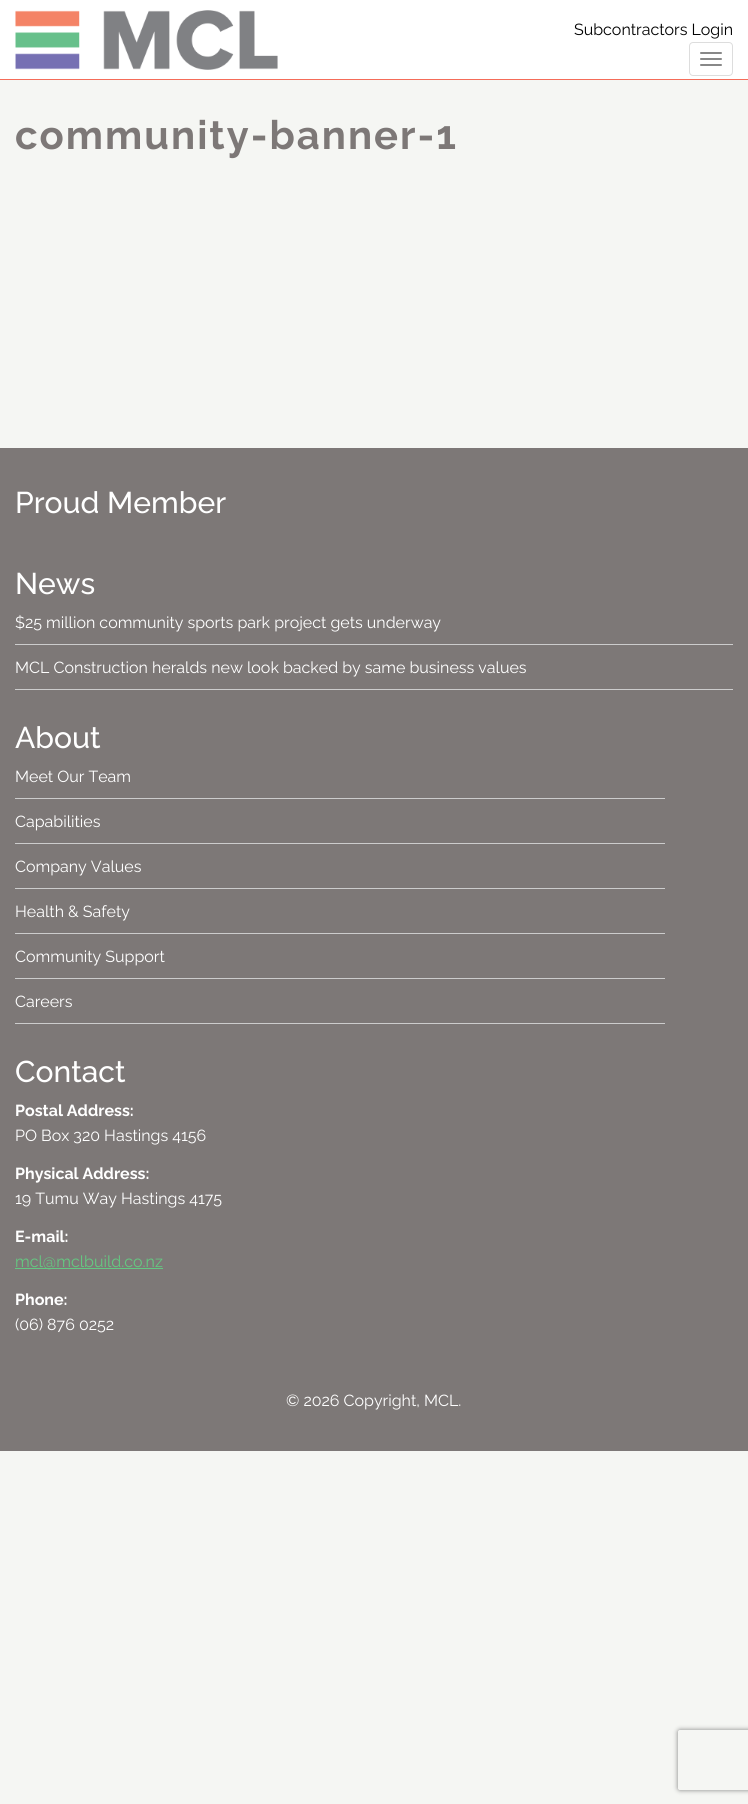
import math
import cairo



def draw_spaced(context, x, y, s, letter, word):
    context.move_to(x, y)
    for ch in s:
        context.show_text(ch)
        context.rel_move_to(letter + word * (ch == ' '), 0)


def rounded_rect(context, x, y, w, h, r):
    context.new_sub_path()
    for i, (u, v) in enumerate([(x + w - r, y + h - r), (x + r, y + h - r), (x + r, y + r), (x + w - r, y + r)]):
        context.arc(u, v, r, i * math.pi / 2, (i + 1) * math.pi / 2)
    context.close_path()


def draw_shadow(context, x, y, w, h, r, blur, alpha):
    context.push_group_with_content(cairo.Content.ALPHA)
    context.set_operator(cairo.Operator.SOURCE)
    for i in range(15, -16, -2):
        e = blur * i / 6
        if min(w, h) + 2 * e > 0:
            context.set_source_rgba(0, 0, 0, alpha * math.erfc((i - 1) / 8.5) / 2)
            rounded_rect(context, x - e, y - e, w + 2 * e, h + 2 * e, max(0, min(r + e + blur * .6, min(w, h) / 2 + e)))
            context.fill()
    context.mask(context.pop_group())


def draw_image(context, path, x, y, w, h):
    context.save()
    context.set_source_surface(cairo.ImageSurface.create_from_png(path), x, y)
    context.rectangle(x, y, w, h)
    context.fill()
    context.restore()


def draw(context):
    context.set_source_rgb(245 / 255, 246 / 255, 243 / 255)
    context.paint()
    context.set_source_rgb(1, 1, 1)
    context.rectangle(0, 0, 748, 79)
    context.fill()
    context.set_source_rgb(245 / 255, 108 / 255, 89 / 255)
    context.rectangle(0, 79, 748, 1)
    context.fill()
    draw_image(context, "images/1.png", 15, 10, 263, 60)
    rounded_rect(context, 689.5, 42.5, 43, 33, 3.5)
    context.set_source_rgb(221 / 255, 221 / 255, 221 / 255)
    context.set_line_width(1)
    context.stroke()
    context.set_source_rgb(136 / 255, 136 / 255, 136 / 255)
    rounded_rect(context, 700, 52, 22, 2, 1)
    context.fill()
    rounded_rect(context, 700, 58, 22, 2, 1)
    context.fill()
    rounded_rect(context, 700, 64, 22, 2, 1)
    context.fill()
    context.set_source_rgb(125 / 255, 120 / 255, 119 / 255)
    context.rectangle(0, 448, 748, 1003)
    context.fill()
    context.set_source_rgb(204 / 255, 204 / 255, 204 / 255)
    context.rectangle(15, 644, 718, 1)
    context.fill()
    context.rectangle(15, 689, 718, 1)
    context.fill()
    context.rectangle(15, 798, 650, 1)
    context.fill()
    context.rectangle(15, 843, 650, 1)
    context.fill()
    context.rectangle(15, 888, 650, 1)
    context.fill()
    context.rectangle(15, 933, 650, 1)
    context.fill()
    context.rectangle(15, 978, 650, 1)
    context.fill()
    context.rectangle(15, 1023, 650, 1)
    context.fill()
    context.set_source_rgb(100 / 255, 200 / 255, 129 / 255)
    context.rectangle(15, 1268, 148, 1)
    context.fill()
    context.save()
    context.set_fill_rule(cairo.FillRule.EVEN_ODD)
    context.new_path()
    context.move_to(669, 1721)
    context.line_to(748, 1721)
    context.line_to(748, 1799)
    context.line_to(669, 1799)
    context.close_path()
    context.move_to(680, 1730)
    context.line_to(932, 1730)
    context.curve_to(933, 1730, 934, 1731, 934, 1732)
    context.line_to(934, 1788)
    context.curve_to(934, 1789, 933, 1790, 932, 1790)
    context.line_to(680, 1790)
    context.curve_to(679, 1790, 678, 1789, 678, 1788)
    context.line_to(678, 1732)
    context.curve_to(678, 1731, 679, 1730, 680, 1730)
    context.close_path()
    context.clip()
    context.set_source_rgb(128 / 255, 128 / 255, 128 / 255)
    draw_shadow(context, 678, 1730, 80, 60, 2, 2.5, 1)
    context.restore()
    context.select_font_face("Raleway")
    context.set_font_size(16)
    context.set_source_rgb(0, 0, 0)
    context.move_to(574, 35)
    context.show_text("Subcontractors Login")
    context.select_font_face("Raleway", cairo.FontSlant.NORMAL, cairo.FontWeight.BOLD)
    context.set_font_size(40)
    context.set_source_rgb(125 / 255, 120 / 255, 119 / 255)
    draw_spaced(context, 15, 149, "community-banner-1", 2, 0)
    context.select_font_face("Raleway Medium")
    context.set_font_size(30)
    context.set_source_rgb(1, 1, 1)
    context.move_to(15, 513)
    context.show_text("Proud Member")
    context.move_to(15, 594)
    context.show_text("News")
    context.select_font_face("Raleway")
    context.set_font_size(16)
    context.move_to(15, 628)
    context.show_text("$25 million community sports park project gets underway")
    context.move_to(15, 673)
    context.show_text("MCL Construction heralds new look backed by same business values")
    context.select_font_face("Raleway Medium")
    context.set_font_size(30)
    context.move_to(15, 748)
    context.show_text("About")
    context.select_font_face("Raleway")
    context.set_font_size(16)
    context.move_to(15, 782)
    context.show_text("Meet Our Team")
    context.move_to(15, 827)
    context.show_text("Capabilities")
    context.move_to(15, 872)
    context.show_text("Company Values")
    context.move_to(15, 917)
    context.show_text("Health & Safety")
    context.move_to(15, 962)
    context.show_text("Community Support")
    context.move_to(15, 1007)
    context.show_text("Careers")
    context.select_font_face("Raleway Medium")
    context.set_font_size(30)
    context.move_to(15, 1082)
    context.show_text("Contact")
    context.select_font_face("Raleway", cairo.FontSlant.NORMAL, cairo.FontWeight.BOLD)
    context.set_font_size(16)
    context.move_to(15, 1116)
    context.show_text("Postal Address:")
    context.select_font_face("Raleway")
    context.move_to(15, 1141)
    context.show_text("PO Box 320 Hastings 4156")
    context.select_font_face("Raleway", cairo.FontSlant.NORMAL, cairo.FontWeight.BOLD)
    context.move_to(15, 1179)
    context.show_text("Physical Address:")
    context.select_font_face("Raleway")
    context.move_to(15, 1204)
    context.show_text("19 Tumu Way Hastings 4175")
    context.select_font_face("Raleway", cairo.FontSlant.NORMAL, cairo.FontWeight.BOLD)
    context.move_to(15, 1242)
    context.show_text("E-mail:")
    context.select_font_face("Raleway")
    context.set_source_rgb(100 / 255, 200 / 255, 129 / 255)
    context.move_to(15, 1267)
    context.show_text("mcl@mclbuild.co.nz")
    context.select_font_face("Raleway", cairo.FontSlant.NORMAL, cairo.FontWeight.BOLD)
    context.set_source_rgb(1, 1, 1)
    context.move_to(15, 1305)
    context.show_text("Phone:")
    context.select_font_face("Raleway")
    context.move_to(15, 1330)
    context.show_text("(06) 876 0252")
    context.move_to(286, 1406)
    context.show_text("© 2026 Copyright, MCL.")


surface = cairo.ImageSurface(cairo.Format.RGB24, 748, 1804)
context = cairo.Context(surface)
options = cairo.FontOptions()
options.set_hint_metrics(cairo.HintMetrics.OFF)
options.set_hint_style(cairo.HintStyle.NONE)
context.set_font_options(options)
context.set_miter_limit(4)
draw(context)
surface.write_to_png("out.png")
